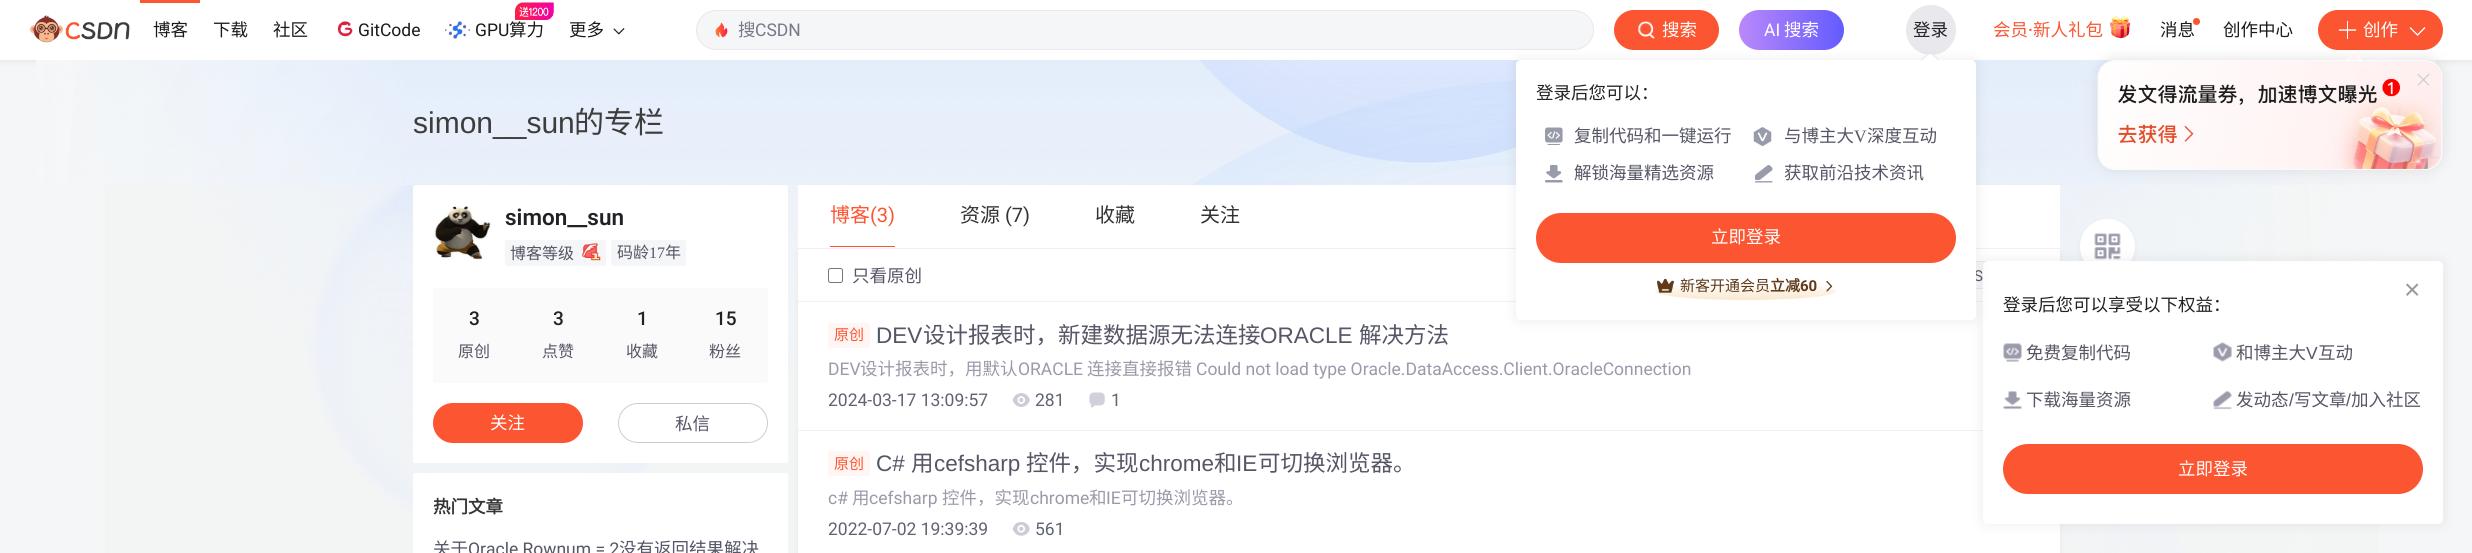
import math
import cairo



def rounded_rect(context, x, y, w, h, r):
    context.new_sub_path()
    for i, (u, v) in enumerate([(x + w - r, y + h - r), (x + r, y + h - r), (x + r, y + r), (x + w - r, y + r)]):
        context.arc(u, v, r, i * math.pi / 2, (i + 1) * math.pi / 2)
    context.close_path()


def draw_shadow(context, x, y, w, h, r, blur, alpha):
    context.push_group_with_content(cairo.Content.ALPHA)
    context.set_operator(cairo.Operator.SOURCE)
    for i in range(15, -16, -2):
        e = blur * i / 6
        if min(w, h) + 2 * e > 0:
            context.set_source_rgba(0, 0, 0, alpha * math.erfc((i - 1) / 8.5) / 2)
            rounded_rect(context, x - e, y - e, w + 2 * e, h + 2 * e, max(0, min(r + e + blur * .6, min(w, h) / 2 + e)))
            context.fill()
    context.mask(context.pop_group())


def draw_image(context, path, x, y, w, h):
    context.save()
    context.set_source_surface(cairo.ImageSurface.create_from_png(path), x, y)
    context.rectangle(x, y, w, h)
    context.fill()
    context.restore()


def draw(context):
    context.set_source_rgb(245 / 255, 246 / 255, 247 / 255)
    context.paint()
    draw_image(context, "images/1.png", 105, 185, 2274, 368)
    context.set_source_rgb(0, 0, 0)
    draw_shadow(context, 0, 3, 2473, 60, 0, 2.5, 0.05)
    context.set_source_rgb(1, 1, 1)
    context.rectangle(0, 0, 2472, 60)
    context.fill()
    draw_image(context, "images/2.png", 30, 15, 100, 28)
    context.set_source_rgb(252 / 255, 85 / 255, 49 / 255)
    context.rectangle(140, 0, 60, 3)
    context.fill()
    draw_image(context, "images/3.png", 337, 21, 16, 16)
    draw_image(context, "images/4.png", 515, 2, 39, 18)
    draw_image(context, "images/5.png", 445, 21, 25, 18)
    draw_image(context, "images/6.png", 613, 28, 12, 7)
    context.set_source_rgb(245 / 255, 246 / 255, 247 / 255)
    rounded_rect(context, 696.5, 10.5, 897, 39, 19.5)
    context.fill_preserve()
    context.set_source_rgb(232 / 255, 232 / 255, 237 / 255)
    context.set_line_width(1)
    context.stroke()
    draw_image(context, "images/7.png", 715, 22, 13, 16)
    context.set_source_rgb(252 / 255, 85 / 255, 49 / 255)
    rounded_rect(context, 1614, 10, 105, 40, 20)
    context.fill()
    draw_image(context, "images/8.png", 1638, 21, 17, 18)
    gradient = cairo.LinearGradient(1739, 30, 1844, 30)
    gradient.add_color_stop_rgba(0, 186 / 255, 136 / 255, 250 / 255, 1)
    gradient.add_color_stop_rgba(1, 99 / 255, 91 / 255, 1, 1)
    context.set_source(gradient)
    rounded_rect(context, 1739, 10, 105, 40, 20)
    context.fill()
    context.set_source_rgb(232 / 255, 232 / 255, 237 / 255)
    context.arc(1931, 30, 25, 0, 2 * math.pi)
    context.fill()
    draw_image(context, "images/23.png", 36, 60, 2400, 125)
    context.set_source_rgb(1, 1, 1)
    context.rectangle(798, 185, 1262, 63)
    context.fill()
    context.set_source_rgb(240 / 255, 242 / 255, 245 / 255)
    context.rectangle(798, 248, 1262, 1)
    context.fill()
    context.set_source_rgb(0, 0, 0)
    draw_shadow(context, 798, 251, 1262, 53, 0, 2.5, 0.05)
    context.set_source_rgb(1, 1, 1)
    context.rectangle(798, 249, 1262, 52)
    context.fill()
    context.set_source_rgb(250 / 255, 250 / 255, 252 / 255)
    context.rectangle(1976, 262, 9, 26)
    context.fill()
    context.rectangle(1940.5, 261.5, 89, 27)
    context.set_source_rgb(234 / 255, 234 / 255, 239 / 255)
    context.stroke()
    context.set_source_rgb(0, 0, 0)
    draw_shadow(context, 798, 304, 1262, 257, 0, 2.5, 0.05)
    context.set_source_rgb(1, 1, 1)
    context.rectangle(798, 302, 1262, 251)
    context.fill()
    context.set_source_rgb(240 / 255, 242 / 255, 245 / 255)
    context.rectangle(798, 301, 1185, 1)
    context.fill()
    context.set_source_rgb(0, 0, 0)
    draw_shadow(context, 2080, 221, 55, 55, 27.5, 2.5, 0.05)
    context.set_source_rgb(1, 1, 1)
    context.arc(2107.5, 246.5, 27.5, 0, 2 * math.pi)
    context.fill()
    context.set_source_rgb(240 / 255, 242 / 255, 245 / 255)
    context.rectangle(798, 430, 1185, 1)
    context.fill()
    draw_image(context, "images/29.png", 2094, 233, 27, 27)
    context.set_source_rgb(0, 0, 0)
    draw_shadow(context, 1980, 259, 465, 267, 8, 6, 0.06)
    context.set_source_rgb(1, 1, 1)
    rounded_rect(context, 1983, 261, 460, 263, 5)
    context.fill()
    context.set_source_rgb(0, 0, 0)
    draw_shadow(context, 1514, 58, 465, 265, 8, 6, 0.06)
    draw_image(context, "images/17.png", 2110, 16, 20, 23)
    context.set_source_rgb(252 / 255, 85 / 255, 49 / 255)
    rounded_rect(context, 2318, 10, 125, 40, 20)
    context.fill()
    draw_image(context, "images/18.png", 2338, 21, 19, 18)
    draw_image(context, "images/19.png", 2409, 27, 17, 9)
    context.set_source_rgb(103 / 255, 103 / 255, 103 / 255)
    draw_shadow(context, 2098, 59, 345, 110, 18, 7, 0.19)
    draw_image(context, "images/21.png", 2097, 60, 346, 110)
    draw_image(context, "images/20.png", 2347, 52, 15, 9)
    draw_image(context, "images/22.png", 2417, 73, 13, 13)
    context.set_source_rgb(1, 1, 1)
    rounded_rect(context, 413, 185, 375, 278, 2.5)
    context.fill()
    draw_image(context, "images/24.png", 433, 205, 59, 55)
    context.set_source_rgb(245 / 255, 246 / 255, 247 / 255)
    rounded_rect(context, 505, 240, 101, 26, 2.5)
    context.fill()
    draw_image(context, "images/25.png", 581, 243, 20, 18)
    rounded_rect(context, 611, 240, 75, 26, 2.5)
    context.fill()
    context.set_source_rgb(250 / 255, 250 / 255, 250 / 255)
    rounded_rect(context, 433, 288, 335, 95, 2.5)
    context.fill()
    context.set_source_rgb(252 / 255, 85 / 255, 49 / 255)
    rounded_rect(context, 433, 403, 150, 40, 20)
    context.fill()
    rounded_rect(context, 618.5, 403.5, 149, 39, 19.5)
    context.set_source_rgb(204 / 255, 204 / 255, 216 / 255)
    context.stroke()
    context.set_source_rgb(1, 1, 1)
    rounded_rect(context, 413, 473, 375, 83, 2.5)
    context.fill()
    context.set_source_rgb(252 / 255, 85 / 255, 49 / 255)
    context.rectangle(830, 246, 65, 1)
    context.fill()
    rounded_rect(context, 828.5, 268.5, 14, 14, 2)
    context.set_source_rgb(118 / 255, 118 / 255, 118 / 255)
    context.stroke()
    context.set_source_rgb(1, 245 / 255, 242 / 255)
    rounded_rect(context, 828, 323, 42, 25, 2.5)
    context.fill()
    draw_image(context, "images/26.png", 1012, 393, 18, 14)
    draw_image(context, "images/27.png", 1089, 392, 16, 16)
    rounded_rect(context, 828, 451, 42, 25, 2.5)
    context.fill()
    draw_image(context, "images/28.png", 1012, 522, 18, 14)
    draw_image(context, "images/30.png", 2003, 343, 19, 19)
    draw_image(context, "images/31.png", 2213, 342, 19, 20)
    draw_image(context, "images/32.png", 2003, 391, 19, 19)
    draw_image(context, "images/33.png", 2213, 391, 19, 19)
    context.set_source_rgb(252 / 255, 85 / 255, 49 / 255)
    rounded_rect(context, 2003, 444, 420, 50, 25)
    context.fill()
    context.select_font_face("Noto Sans CJK SC")
    context.set_font_size(17.5)
    context.set_source_rgb(26 / 255, 26 / 255, 26 / 255)
    context.move_to(153, 36)
    context.show_text("博客")
    context.move_to(213, 36)
    context.show_text("下载")
    context.move_to(273, 36)
    context.show_text("社区")
    context.select_font_face("Roboto")
    context.move_to(358, 36)
    context.show_text("GitCode")
    context.move_to(475, 36)
    context.show_text("GPU")
    context.select_font_face("Noto Sans CJK SC")
    context.move_to(509, 36)
    context.show_text("算力")
    context.move_to(569, 36)
    context.show_text("更多")
    context.set_source_rgb(119 / 255, 120 / 255, 136 / 255)
    context.move_to(738, 36)
    context.show_text("搜")
    context.select_font_face("Roboto")
    context.move_to(755, 36)
    context.show_text("CSDN")
    context.select_font_face("Noto Sans CJK SC")
    context.set_source_rgb(1, 1, 1)
    context.move_to(1662, 36)
    context.show_text("搜索")
    context.select_font_face("Roboto")
    context.move_to(1764, 36)
    context.show_text("AI")
    context.select_font_face("Noto Sans CJK SC")
    context.move_to(1784, 36)
    context.show_text("搜索")
    context.set_source_rgb(34 / 255, 34 / 255, 38 / 255)
    context.move_to(1913, 36)
    context.show_text("登录")
    context.set_source_rgb(252 / 255, 85 / 255, 49 / 255)
    context.move_to(1993, 36)
    context.show_text("会员")
    context.select_font_face("Roboto Medium")
    context.move_to(2028, 36)
    context.show_text("·")
    context.select_font_face("Noto Sans CJK SC")
    context.move_to(2033, 36)
    context.show_text("新人礼包")
    context.set_source_rgb(26 / 255, 26 / 255, 26 / 255)
    context.move_to(2160, 36)
    context.show_text("消息")
    context.set_source_rgb(252 / 255, 85 / 255, 49 / 255)
    context.new_path()
    context.arc(2196.5, 21.5, 3.5, 0, 2 * math.pi)
    context.fill()
    context.set_source_rgb(26 / 255, 26 / 255, 26 / 255)
    context.move_to(2223, 36)
    context.show_text("创作中心")
    context.set_source_rgb(1, 1, 1)
    context.move_to(2363, 36)
    context.show_text("创作")
    context.select_font_face("Liberation Sans")
    context.set_font_size(30)
    context.set_source_rgb(61 / 255, 61 / 255, 61 / 255)
    context.move_to(413, 133)
    context.show_text("simon__sun")
    context.select_font_face("Noto Sans CJK SC")
    context.move_to(574, 133)
    context.show_text("的专栏")
    context.select_font_face("Roboto SemiBold")
    context.set_font_size(22.5)
    context.set_source_rgb(34 / 255, 34 / 255, 38 / 255)
    context.move_to(505, 225)
    context.show_text("simon__sun")
    context.select_font_face("Noto Sans CJK SC")
    context.set_font_size(16)
    context.set_source_rgb(85 / 255, 86 / 255, 102 / 255)
    context.move_to(510, 259)
    context.show_text("博客等级")
    context.move_to(617, 258)
    context.show_text("码龄")
    context.select_font_face("Liberation Serif")
    context.move_to(649, 258)
    context.show_text("17")
    context.select_font_face("Noto Sans CJK SC")
    context.move_to(665, 258)
    context.show_text("年")
    context.select_font_face("Roboto Medium")
    context.set_font_size(19)
    context.set_source_rgb(34 / 255, 34 / 255, 38 / 255)
    context.move_to(469, 325)
    context.show_text("3")
    context.select_font_face("Noto Sans CJK SC")
    context.set_font_size(16)
    context.set_source_rgb(85 / 255, 86 / 255, 102 / 255)
    context.move_to(458, 357)
    context.show_text("原创")
    context.select_font_face("Roboto Medium")
    context.set_font_size(19)
    context.set_source_rgb(34 / 255, 34 / 255, 38 / 255)
    context.move_to(553, 325)
    context.show_text("3")
    context.select_font_face("Noto Sans CJK SC")
    context.set_font_size(16)
    context.set_source_rgb(85 / 255, 86 / 255, 102 / 255)
    context.move_to(542, 357)
    context.show_text("点赞")
    context.select_font_face("Roboto Medium")
    context.set_font_size(19)
    context.set_source_rgb(34 / 255, 34 / 255, 38 / 255)
    context.move_to(637, 325)
    context.show_text("1")
    context.select_font_face("Noto Sans CJK SC")
    context.set_font_size(16)
    context.set_source_rgb(85 / 255, 86 / 255, 102 / 255)
    context.move_to(626, 357)
    context.show_text("收藏")
    context.select_font_face("Roboto Medium")
    context.set_font_size(19)
    context.set_source_rgb(34 / 255, 34 / 255, 38 / 255)
    context.move_to(715, 325)
    context.show_text("15")
    context.select_font_face("Noto Sans CJK SC")
    context.set_font_size(16)
    context.set_source_rgb(85 / 255, 86 / 255, 102 / 255)
    context.move_to(709, 357)
    context.show_text("粉丝")
    context.set_font_size(17.5)
    context.set_source_rgb(1, 1, 1)
    context.move_to(490, 429)
    context.show_text("关注")
    context.set_source_rgb(85 / 255, 86 / 255, 102 / 255)
    context.move_to(675, 430)
    context.show_text("私信")
    context.select_font_face("Noto Sans CJK SC", cairo.FontSlant.NORMAL, cairo.FontWeight.BOLD)
    context.set_source_rgb(51 / 255, 51 / 255, 51 / 255)
    context.move_to(433, 513)
    context.show_text("热门文章")
    context.select_font_face("Noto Sans CJK SC")
    context.set_source_rgb(85 / 255, 86 / 255, 102 / 255)
    context.move_to(433, 555)
    context.show_text("关于")
    context.select_font_face("Roboto")
    context.move_to(468, 555)
    context.show_text("Oracle Rownum = 2")
    context.select_font_face("Noto Sans CJK SC")
    context.move_to(619, 555)
    context.show_text("没有返回结果解决")
    context.set_font_size(20)
    context.set_source_rgb(252 / 255, 85 / 255, 49 / 255)
    context.move_to(830, 222)
    context.show_text("博客")
    context.select_font_face("Roboto")
    context.move_to(870, 222)
    context.show_text("(3)")
    context.select_font_face("Noto Sans CJK SC")
    context.set_source_rgb(51 / 255, 51 / 255, 51 / 255)
    context.move_to(960, 222)
    context.show_text("资源")
    context.select_font_face("Roboto")
    context.move_to(1005, 222)
    context.show_text("(7)")
    context.select_font_face("Noto Sans CJK SC")
    context.move_to(1095, 222)
    context.show_text("收藏")
    context.move_to(1200, 222)
    context.show_text("关注")
    context.set_font_size(17.5)
    context.set_source_rgb(85 / 255, 86 / 255, 102 / 255)
    context.move_to(852, 282)
    context.show_text("只看原创")
    context.select_font_face("Roboto")
    context.set_font_size(15)
    context.move_to(1974, 281)
    context.show_text("S")
    context.set_source_rgb(1, 1, 1)
    rounded_rect(context, 1516, 60, 460, 260, 5)
    context.fill()
    draw_image(context, "images/13.png", 1755, 165, 18, 18)
    draw_image(context, "images/12.png", 1545, 165, 18, 18)
    draw_image(context, "images/11.png", 1753, 127, 19, 20)
    draw_image(context, "images/10.png", 1545, 127, 18, 18)
    draw_image(context, "images/9.png", 1921, 54, 18, 7)
    draw_image(context, "images/14.png", 1655, 284, 182, 16)
    draw_image(context, "images/16.png", 1826, 280, 7, 12)
    context.select_font_face("Roboto", cairo.FontSlant.NORMAL, cairo.FontWeight.BOLD)
    context.set_source_rgb(94 / 255, 58 / 255, 26 / 255)
    context.move_to(1800, 291)
    context.show_text("60")
    context.select_font_face("Noto Sans CJK SC", cairo.FontSlant.NORMAL, cairo.FontWeight.BOLD)
    context.move_to(1770, 291)
    context.show_text("立减")
    context.select_font_face("Noto Sans CJK SC")
    context.move_to(1680, 291)
    context.show_text("新客开通会员")
    draw_image(context, "images/15.png", 1657, 278, 17, 15)
    context.set_source_rgb(252 / 255, 85 / 255, 49 / 255)
    rounded_rect(context, 1536, 213, 420, 50, 25)
    context.fill()
    context.set_font_size(17.5)
    context.set_source_rgb(1, 1, 1)
    context.move_to(1711, 243)
    context.show_text("立即登录")
    context.set_source_rgb(85 / 255, 86 / 255, 102 / 255)
    context.move_to(1784, 179)
    context.show_text("获取前沿技术资讯")
    context.move_to(1574, 179)
    context.show_text("解锁海量精选资源")
    context.move_to(1867, 142)
    context.show_text("深度互动")
    context.select_font_face("Liberation Serif")
    context.move_to(1854, 142)
    context.show_text("V")
    context.select_font_face("Noto Sans CJK SC")
    context.move_to(1784, 142)
    context.show_text("与博主大")
    context.move_to(1574, 142)
    context.show_text("复制代码和一键运行")
    context.set_source_rgb(34 / 255, 34 / 255, 38 / 255)
    context.move_to(1536, 99)
    context.show_text("登录后您可以：")
    context.set_font_size(15)
    context.set_source_rgb(252 / 255, 85 / 255, 49 / 255)
    context.move_to(834, 340)
    context.show_text("原创")
    context.select_font_face("Liberation Sans")
    context.set_font_size(22.5)
    context.set_source_rgb(85 / 255, 86 / 255, 102 / 255)
    context.move_to(876, 343)
    context.show_text("DEV")
    context.select_font_face("Noto Sans CJK SC")
    context.move_to(923, 343)
    context.show_text("设计报表时，新建数据源无法连接")
    context.select_font_face("Liberation Sans")
    context.move_to(1260, 343)
    context.show_text("ORACLE")
    context.select_font_face("Noto Sans CJK SC")
    context.move_to(1359, 343)
    context.show_text("解决方法")
    context.select_font_face("Roboto")
    context.set_font_size(17.5)
    context.set_source_rgb(153 / 255, 154 / 255, 170 / 255)
    context.move_to(828, 375)
    context.show_text("DEV")
    context.select_font_face("Noto Sans CJK SC")
    context.move_to(860, 375)
    context.show_text("设计报表时，用默认")
    context.select_font_face("Roboto")
    context.move_to(1018, 375)
    context.show_text("ORACLE")
    context.select_font_face("Noto Sans CJK SC")
    context.move_to(1087, 375)
    context.show_text("连接直接报错")
    context.select_font_face("Roboto")
    context.move_to(1196, 375)
    context.show_text("Could not load type Oracle.DataAccess.Client.OracleConnection")
    context.set_source_rgb(95 / 255, 100 / 255, 113 / 255)
    context.move_to(828, 406)
    context.show_text("2024-03-17 13:09:57")
    context.move_to(1035, 406)
    context.show_text("281")
    context.move_to(1111, 406)
    context.show_text("1")
    context.select_font_face("Noto Sans CJK SC")
    context.set_font_size(15)
    context.set_source_rgb(252 / 255, 85 / 255, 49 / 255)
    context.move_to(834, 469)
    context.show_text("原创")
    context.select_font_face("Liberation Sans")
    context.set_font_size(22.5)
    context.set_source_rgb(85 / 255, 86 / 255, 102 / 255)
    context.move_to(876, 471)
    context.show_text("C#")
    context.select_font_face("Noto Sans CJK SC")
    context.move_to(911, 471)
    context.show_text("用")
    context.select_font_face("Liberation Sans")
    context.move_to(934, 471)
    context.show_text("cefsharp")
    context.select_font_face("Noto Sans CJK SC")
    context.move_to(1026, 471)
    context.show_text("控件，实现")
    context.select_font_face("Liberation Sans")
    context.move_to(1139, 471)
    context.show_text("chrome")
    context.select_font_face("Noto Sans CJK SC")
    context.move_to(1214, 471)
    context.show_text("和")
    context.select_font_face("Liberation Sans")
    context.move_to(1236, 471)
    context.show_text("IE")
    context.select_font_face("Noto Sans CJK SC")
    context.move_to(1258, 471)
    context.show_text("可切换浏览器。")
    context.select_font_face("Roboto")
    context.set_font_size(17.5)
    context.set_source_rgb(153 / 255, 154 / 255, 170 / 255)
    context.move_to(828, 504)
    context.show_text("c#")
    context.select_font_face("Noto Sans CJK SC")
    context.move_to(852, 504)
    context.show_text("用")
    context.select_font_face("Roboto")
    context.move_to(869, 504)
    context.show_text("cefsharp")
    context.select_font_face("Noto Sans CJK SC")
    context.move_to(942, 504)
    context.show_text("控件，实现")
    context.select_font_face("Roboto")
    context.move_to(1030, 504)
    context.show_text("chrome")
    context.select_font_face("Noto Sans CJK SC")
    context.move_to(1089, 504)
    context.show_text("和")
    context.select_font_face("Roboto")
    context.move_to(1106, 504)
    context.show_text("IE")
    context.select_font_face("Noto Sans CJK SC")
    context.move_to(1121, 504)
    context.show_text("可切换浏览器。")
    context.select_font_face("Roboto")
    context.set_source_rgb(95 / 255, 100 / 255, 113 / 255)
    context.move_to(828, 535)
    context.show_text("2022-07-02 19:39:39")
    context.move_to(1035, 535)
    context.show_text("561")
    context.select_font_face("Liberation Sans")
    context.set_font_size(28)
    context.set_source_rgb(153 / 255, 153 / 255, 153 / 255)
    context.move_to(2404, 299)
    context.show_text("×")
    context.select_font_face("Noto Sans CJK SC")
    context.set_font_size(17.5)
    context.set_source_rgb(34 / 255, 34 / 255, 38 / 255)
    context.move_to(2003, 311)
    context.show_text("登录后您可以享受以下权益：")
    context.set_source_rgb(85 / 255, 86 / 255, 102 / 255)
    context.move_to(2026, 359)
    context.show_text("免费复制代码")
    context.move_to(2236, 359)
    context.show_text("和博主大")
    context.select_font_face("Liberation Sans")
    context.move_to(2306, 359)
    context.show_text("V")
    context.select_font_face("Noto Sans CJK SC")
    context.move_to(2318, 359)
    context.show_text("互动")
    context.move_to(2026, 406)
    context.show_text("下载海量资源")
    context.move_to(2236, 406)
    context.show_text("发动态")
    context.select_font_face("Liberation Sans")
    context.move_to(2289, 406)
    context.show_text("/")
    context.select_font_face("Noto Sans CJK SC")
    context.move_to(2294, 406)
    context.show_text("写文章")
    context.select_font_face("Liberation Sans")
    context.move_to(2346, 406)
    context.show_text("/")
    context.select_font_face("Noto Sans CJK SC")
    context.move_to(2351, 406)
    context.show_text("加入社区")
    context.set_source_rgb(1, 1, 1)
    context.move_to(2178, 475)
    context.show_text("立即登录")


surface = cairo.ImageSurface(cairo.Format.RGB24, 2472, 553)
context = cairo.Context(surface)
options = cairo.FontOptions()
options.set_hint_metrics(cairo.HintMetrics.OFF)
options.set_hint_style(cairo.HintStyle.NONE)
context.set_font_options(options)
context.set_miter_limit(4)
draw(context)
surface.write_to_png("out.png")
